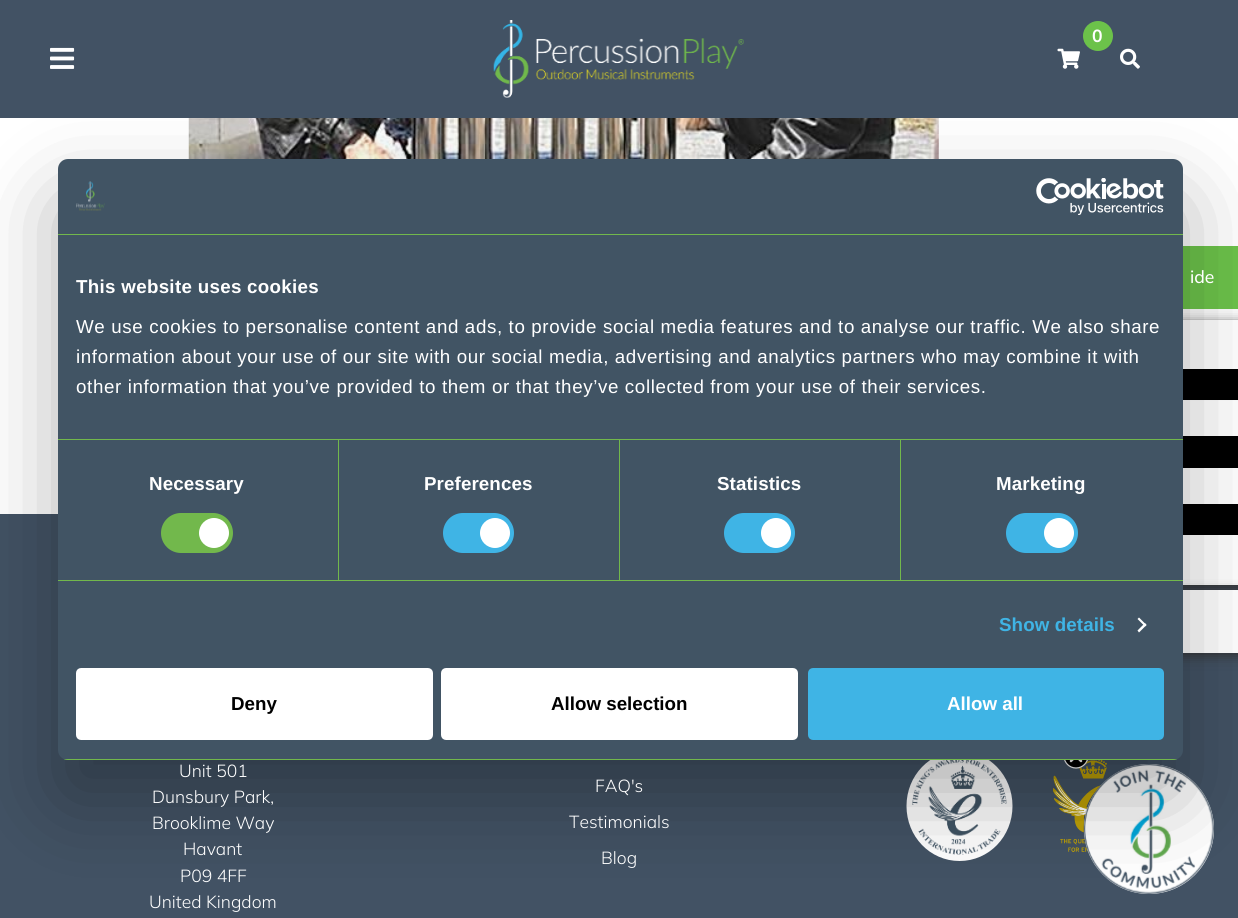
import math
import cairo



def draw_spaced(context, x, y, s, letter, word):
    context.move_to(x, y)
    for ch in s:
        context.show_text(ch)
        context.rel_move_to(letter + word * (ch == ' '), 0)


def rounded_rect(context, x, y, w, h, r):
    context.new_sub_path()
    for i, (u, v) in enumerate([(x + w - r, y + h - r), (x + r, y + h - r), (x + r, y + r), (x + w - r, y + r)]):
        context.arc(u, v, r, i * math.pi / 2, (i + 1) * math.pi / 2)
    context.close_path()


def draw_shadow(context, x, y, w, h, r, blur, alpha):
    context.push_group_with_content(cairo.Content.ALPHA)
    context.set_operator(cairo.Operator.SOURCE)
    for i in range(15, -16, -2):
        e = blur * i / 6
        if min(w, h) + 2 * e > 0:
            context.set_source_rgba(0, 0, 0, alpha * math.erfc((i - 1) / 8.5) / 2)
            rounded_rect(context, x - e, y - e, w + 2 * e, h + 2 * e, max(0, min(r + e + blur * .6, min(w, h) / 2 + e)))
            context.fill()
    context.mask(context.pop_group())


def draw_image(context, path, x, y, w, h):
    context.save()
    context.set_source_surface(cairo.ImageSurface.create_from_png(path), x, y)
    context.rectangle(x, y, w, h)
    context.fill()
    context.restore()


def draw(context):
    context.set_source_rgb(1, 1, 1)
    context.paint()
    context.set_source_rgb(66 / 255, 82 / 255, 100 / 255)
    context.rectangle(0, 0, 1238, 118)
    context.fill()
    draw_image(context, "images/1.png", 493, 20, 251, 78)
    context.set_source_rgb(108 / 255, 194 / 255, 74 / 255)
    context.arc(1098, 36, 15, 0, 2 * math.pi)
    context.fill()
    draw_image(context, "images/2.png", 1057, 48, 23, 21)
    draw_image(context, "images/3.png", 1120, 48, 20, 21)
    draw_image(context, "images/4.png", 50, 47, 25, 22)
    draw_image(context, "images/5.png", 188, 118, 751, 41)
    context.set_source_rgb(51 / 255, 51 / 255, 51 / 255)
    draw_shadow(context, 1114, 324, 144, 62, 4, 6, 1)
    context.set_source_rgb(108 / 255, 194 / 255, 74 / 255)
    context.rectangle(1183, 246, 55, 63)
    context.fill()
    context.set_source_rgb(1, 1, 1)
    context.rectangle(1183, 320, 55, 50)
    context.fill()
    context.set_source_rgb(0, 0, 0)
    context.rectangle(1183, 369, 55, 31)
    context.fill()
    context.rectangle(1183, 436, 55, 32)
    context.fill()
    context.set_source_rgb(66 / 255, 82 / 255, 100 / 255)
    context.rectangle(0, 514, 1238, 404)
    context.fill()
    context.set_source_rgb(51 / 255, 51 / 255, 51 / 255)
    draw_shadow(context, 1114, 526, 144, 63, 4, 6, 1)
    context.set_source_rgb(1, 1, 1)
    context.rectangle(1183, 534, 55, 51)
    context.fill()
    context.set_source_rgb(0, 0, 0)
    context.rectangle(1183, 504, 55, 31)
    context.fill()
    context.set_source_rgb(51 / 255, 51 / 255, 51 / 255)
    draw_shadow(context, 1114, 594, 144, 62, 4, 6, 1)
    context.set_source_rgb(1, 1, 1)
    context.rectangle(1183, 590, 55, 63)
    context.fill()
    context.new_path()
    context.move_to(959.5, 751)
    context.curve_to(989, 751, 1012.5, 775.5, 1012.5, 806)
    context.curve_to(1012.5, 836.5, 989, 861, 959.5, 861)
    context.curve_to(930, 861, 906.5, 836.5, 906.5, 806)
    context.curve_to(906.5, 775.5, 930, 751, 959.5, 751)
    context.close_path()
    context.fill()
    draw_image(context, "images/8.png", 912, 760, 95, 95)
    draw_image(context, "images/9.png", 1053, 760, 54, 92)
    context.arc(1149, 829, 65, 0, 2 * math.pi)
    context.fill()
    draw_image(context, "images/10.png", 1083, 764, 131, 130)
    context.set_source_rgb(0, 0, 0)
    context.arc(1076, 756, 12, 0, 2 * math.pi)
    context.fill_preserve()
    context.set_source_rgb(1, 1, 1)
    context.set_line_width(1.2)
    context.stroke()
    context.new_path()
    context.move_to(1071, 751)
    context.line_to(1081, 761)
    context.move_to(1071, 761)
    context.line_to(1081, 751)
    context.close_path()
    context.set_line_width(2.5)
    context.set_line_cap(cairo.LineCap.ROUND)
    context.set_line_join(cairo.LineJoin.ROUND)
    context.stroke()
    context.set_source_rgb(0, 0, 0)
    draw_shadow(context, 58, 199, 1125, 601, 10, 42.5, 0.3)
    context.set_source_rgb(65 / 255, 84 / 255, 100 / 255)
    rounded_rect(context, 58, 159, 1125, 601, 10)
    context.fill()
    context.set_source_rgb(114 / 255, 184 / 255, 76 / 255)
    context.rectangle(58, 234, 1125, 1)
    context.fill()
    draw_image(context, "images/6.png", 76, 181, 29, 30)
    draw_image(context, "images/7.png", 1036, 178, 128, 37)
    context.rectangle(58, 439, 1125, 1)
    context.fill()
    context.rectangle(58, 580, 1125, 1)
    context.fill()
    context.rectangle(338, 440, 1, 140)
    context.fill()
    rounded_rect(context, 161, 513, 72, 40, 20)
    context.fill()
    context.set_source_rgb(1, 1, 1)
    context.arc(214, 533, 15, 0, 2 * math.pi)
    context.fill()
    context.set_source_rgb(114 / 255, 184 / 255, 76 / 255)
    context.rectangle(619, 440, 1, 140)
    context.fill()
    context.set_source_rgb(63 / 255, 180 / 255, 229 / 255)
    rounded_rect(context, 443, 513, 71, 40, 20)
    context.fill()
    context.set_source_rgb(1, 1, 1)
    context.arc(495, 533, 15, 0, 2 * math.pi)
    context.fill()
    context.set_source_rgb(114 / 255, 184 / 255, 76 / 255)
    context.rectangle(900, 440, 1, 140)
    context.fill()
    context.set_source_rgb(63 / 255, 180 / 255, 229 / 255)
    rounded_rect(context, 724, 513, 71, 40, 20)
    context.fill()
    context.set_source_rgb(1, 1, 1)
    context.arc(776, 533, 15, 0, 2 * math.pi)
    context.fill()
    context.set_source_rgb(63 / 255, 180 / 255, 229 / 255)
    rounded_rect(context, 1006, 513, 72, 40, 20)
    context.fill()
    context.set_source_rgb(1, 1, 1)
    context.arc(1059, 533, 15, 0, 2 * math.pi)
    context.fill()
    context.new_path()
    context.move_to(1139, 617.5)
    context.line_to(1146.5, 625)
    context.line_to(1145, 626.5)
    context.line_to(1137.5, 619)
    context.close_path()
    context.fill()
    context.new_path()
    context.move_to(1145, 623)
    context.line_to(1146.5, 625)
    context.line_to(1139, 632.5)
    context.line_to(1137.5, 630.5)
    context.close_path()
    context.fill()
    context.save()
    rounded_rect(context, 58, 159, 1125, 601, 10)
    context.clip()
    context.set_source_rgb(114 / 255, 184 / 255, 76 / 255)
    context.rectangle(58, 759, 1125, 1)
    context.fill()
    context.restore()
    rounded_rect(context, 77.5, 669.5, 354, 69, 3.5)
    context.fill_preserve()
    context.set_line_width(3)
    context.set_line_cap(cairo.LineCap.BUTT)
    context.set_line_join(cairo.LineJoin.MITER)
    context.stroke()
    rounded_rect(context, 442.5, 669.5, 354, 69, 3.5)
    context.fill_preserve()
    context.stroke()
    context.set_source_rgb(63 / 255, 180 / 255, 229 / 255)
    rounded_rect(context, 809.5, 669.5, 353, 69, 3.5)
    context.fill_preserve()
    context.stroke()
    context.select_font_face("Mulish", cairo.FontSlant.NORMAL, cairo.FontWeight.BOLD)
    context.set_font_size(17.5)
    context.set_source_rgb(1, 1, 1)
    context.move_to(1092, 42)
    context.show_text("0")
    context.select_font_face("Mulish Medium")
    context.move_to(1190, 283)
    context.show_text("ide")
    context.select_font_face("Liberation Sans", cairo.FontSlant.NORMAL, cairo.FontWeight.BOLD)
    context.set_font_size(18.75)
    draw_spaced(context, 76, 293, "This website uses cookies", 0.3, 0)
    context.select_font_face("Liberation Sans")
    draw_spaced(context, 76, 333, "We use cookies to personalise content and ads, to provide social media features and to analyse our traffic. We also share", 0.62, 0)
    draw_spaced(context, 76, 363, "information about your use of our site with our social media, advertising and analytics partners who may combine it with", 0.62, 0)
    draw_spaced(context, 76, 393, "other information that you’ve provided to them or that they’ve collected from your use of their services.", 0.62, 0)
    context.select_font_face("Liberation Sans", cairo.FontSlant.NORMAL, cairo.FontWeight.BOLD)
    draw_spaced(context, 149, 490, "Necessary", 0.1, 0)
    draw_spaced(context, 424, 490, "Preferences", 0.1, 0)
    draw_spaced(context, 717, 490, "Statistics", 0.1, 0)
    draw_spaced(context, 996, 490, "Marketing", 0.1, 0)
    context.set_source_rgb(63 / 255, 180 / 255, 229 / 255)
    draw_spaced(context, 999, 631, "Show details", 0.1, 0)
    context.set_source_rgb(0, 0, 0)
    context.move_to(231, 710)
    context.show_text("Deny")
    context.move_to(551, 710)
    context.show_text("Allow selection")
    context.set_source_rgb(1, 1, 1)
    context.move_to(947, 710)
    context.show_text("Allow all")
    context.select_font_face("Mulish Light")
    context.set_font_size(17.5)
    context.move_to(179, 777)
    context.show_text("Unit 501")
    context.move_to(152, 803)
    context.show_text("Dunsbury Park,")
    context.move_to(152, 829)
    context.show_text("Brooklime Way")
    context.move_to(183, 855)
    context.show_text("Havant")
    context.move_to(180, 882)
    context.show_text("P09 4FF")
    context.move_to(149, 908)
    context.show_text("United Kingdom")
    context.move_to(595, 792)
    context.show_text("FAQ's")
    context.move_to(569, 828)
    context.show_text("Testimonials")
    context.move_to(601, 864)
    context.show_text("Blog")


surface = cairo.ImageSurface(cairo.Format.RGB24, 1238, 918)
context = cairo.Context(surface)
options = cairo.FontOptions()
options.set_hint_metrics(cairo.HintMetrics.OFF)
options.set_hint_style(cairo.HintStyle.NONE)
context.set_font_options(options)
context.set_miter_limit(4)
draw(context)
surface.write_to_png("out.png")
